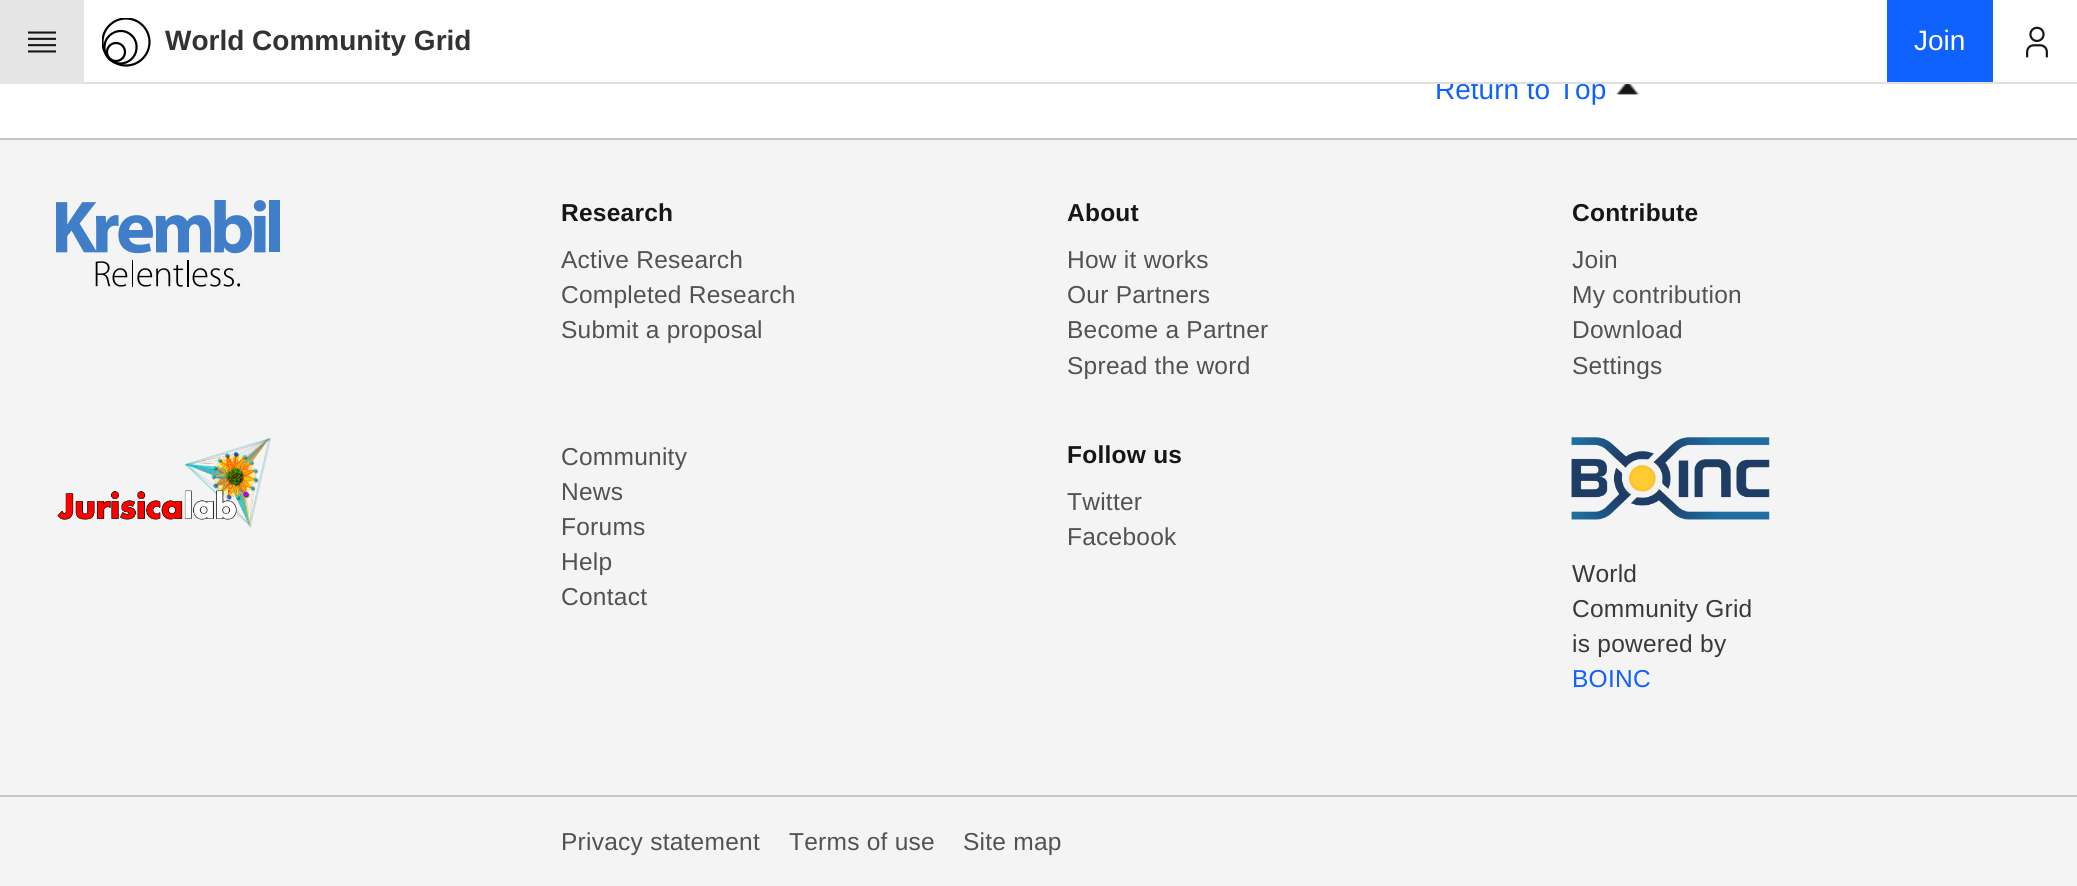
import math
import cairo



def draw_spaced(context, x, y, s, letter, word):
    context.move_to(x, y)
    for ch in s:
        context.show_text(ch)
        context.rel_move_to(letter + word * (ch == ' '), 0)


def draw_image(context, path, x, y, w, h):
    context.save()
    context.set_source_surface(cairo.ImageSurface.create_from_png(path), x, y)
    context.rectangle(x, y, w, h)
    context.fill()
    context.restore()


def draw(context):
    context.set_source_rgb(1, 1, 1)
    context.paint()
    context.set_source_rgb(229 / 255, 229 / 255, 229 / 255)
    context.rectangle(0, 0, 84, 84)
    context.fill()
    draw_image(context, "images/1.png", 28, 31, 28, 22)
    context.save()
    context.rectangle(102, 18, 49, 49)
    context.clip()
    context.arc(126, 42, 23.5, 0, 2 * math.pi)
    context.set_source_rgb(0, 0, 0)
    context.set_line_width(2.2)
    context.stroke()
    context.restore()
    context.new_path()
    context.move_to(121, 31)
    context.curve_to(129.5, 31, 137, 38.5, 136.5, 47.5)
    context.curve_to(136.5, 56.5, 129, 63.5, 120, 63.5)
    context.curve_to(111.5, 63.5, 104, 56, 104.5, 47)
    context.curve_to(104.5, 38, 112, 31, 121, 31)
    context.close_path()
    context.set_source_rgb(0, 0, 0)
    context.set_line_width(2.2)
    context.stroke()
    context.arc(116, 52, 9, 0, 2 * math.pi)
    context.stroke()
    context.set_source_rgb(15 / 255, 98 / 255, 254 / 255)
    context.rectangle(1887, 0, 106, 82)
    context.fill()
    draw_image(context, "images/2.png", 2026, 26, 22, 32)
    draw_image(context, "images/3.png", 1616, 84, 23, 11)
    context.set_source_rgb(244 / 255, 244 / 255, 244 / 255)
    context.rectangle(0, 140, 2077, 655)
    context.fill()
    context.set_source_rgb(198 / 255, 198 / 255, 198 / 255)
    context.rectangle(0, 138, 2077, 2)
    context.fill()
    draw_image(context, "images/4.png", 56, 200, 224, 87)
    draw_image(context, "images/5.png", 57, 438, 214, 90)
    draw_image(context, "images/6.png", 1571, 437, 199, 83)
    context.set_source_rgb(244 / 255, 244 / 255, 244 / 255)
    context.rectangle(0, 797, 2077, 89)
    context.fill()
    context.set_source_rgb(198 / 255, 198 / 255, 198 / 255)
    context.rectangle(0, 795, 2077, 2)
    context.fill()
    context.select_font_face("Liberation Sans", cairo.FontSlant.NORMAL, cairo.FontWeight.BOLD)
    context.set_font_size(28)
    context.set_source_rgb(50 / 255, 50 / 255, 50 / 255)
    context.move_to(165, 50)
    context.show_text("World Community Grid")
    context.select_font_face("Liberation Sans")
    context.set_source_rgb(1, 1, 1)
    context.move_to(1914, 50)
    context.show_text("Join")
    context.set_source_rgb(15 / 255, 98 / 255, 254 / 255)
    context.move_to(1435, 99)
    context.show_text("Return to Top")
    context.set_source_rgb(224 / 255, 224 / 255, 224 / 255)
    context.rectangle(84, 82, 1993, 2)
    context.fill()
    context.set_source_rgb(1, 1, 1)
    context.rectangle(1437, 79, 138, 3)
    context.fill()
    context.select_font_face("Liberation Sans", cairo.FontSlant.NORMAL, cairo.FontWeight.BOLD)
    context.set_font_size(24.5)
    context.set_source_rgb(22 / 255, 22 / 255, 22 / 255)
    draw_spaced(context, 561, 221, "Research", 0.25, 0)
    context.select_font_face("Liberation Sans")
    context.set_source_rgb(82 / 255, 82 / 255, 82 / 255)
    draw_spaced(context, 561, 268, "Active Research", 0.25, 0)
    draw_spaced(context, 561, 303, "Completed Research", 0.25, 0)
    draw_spaced(context, 561, 338, "Submit a proposal", 0.25, 0)
    context.select_font_face("Liberation Sans", cairo.FontSlant.NORMAL, cairo.FontWeight.BOLD)
    context.set_source_rgb(22 / 255, 22 / 255, 22 / 255)
    draw_spaced(context, 1067, 221, "About", 0.25, 0)
    context.select_font_face("Liberation Sans")
    context.set_source_rgb(82 / 255, 82 / 255, 82 / 255)
    draw_spaced(context, 1067, 268, "How it works", 0.25, 0)
    draw_spaced(context, 1067, 303, "Our Partners", 0.25, 0)
    draw_spaced(context, 1067, 338, "Become a Partner", 0.25, 0)
    draw_spaced(context, 1067, 374, "Spread the word", 0.25, 0)
    context.select_font_face("Liberation Sans", cairo.FontSlant.NORMAL, cairo.FontWeight.BOLD)
    context.set_source_rgb(22 / 255, 22 / 255, 22 / 255)
    draw_spaced(context, 1572, 221, "Contribute", 0.25, 0)
    context.select_font_face("Liberation Sans")
    context.set_source_rgb(82 / 255, 82 / 255, 82 / 255)
    draw_spaced(context, 1572, 268, "Join", 0.25, 0)
    draw_spaced(context, 1572, 303, "My contribution", 0.25, 0)
    draw_spaced(context, 1572, 338, "Download", 0.25, 0)
    draw_spaced(context, 1572, 374, "Settings", 0.25, 0)
    draw_spaced(context, 561, 465, "Community", 0.25, 0)
    draw_spaced(context, 561, 500, "News", 0.25, 0)
    draw_spaced(context, 561, 535, "Forums", 0.25, 0)
    draw_spaced(context, 561, 570, "Help", 0.25, 0)
    draw_spaced(context, 561, 605, "Contact", 0.25, 0)
    context.select_font_face("Liberation Sans", cairo.FontSlant.NORMAL, cairo.FontWeight.BOLD)
    context.set_source_rgb(22 / 255, 22 / 255, 22 / 255)
    draw_spaced(context, 1067, 463, "Follow us", 0.25, 0)
    context.select_font_face("Liberation Sans")
    context.set_source_rgb(82 / 255, 82 / 255, 82 / 255)
    draw_spaced(context, 1067, 510, "Twitter", 0.25, 0)
    draw_spaced(context, 1067, 545, "Facebook", 0.25, 0)
    context.set_source_rgb(57 / 255, 57 / 255, 57 / 255)
    draw_spaced(context, 1572, 582, "World", 0.25, 0)
    draw_spaced(context, 1572, 617, "Community Grid", 0.25, 0)
    draw_spaced(context, 1572, 652, "is powered by", 0.25, 0)
    context.set_source_rgb(15 / 255, 98 / 255, 254 / 255)
    draw_spaced(context, 1572, 687, "BOINC", 0.25, 0)
    context.set_source_rgb(82 / 255, 82 / 255, 82 / 255)
    draw_spaced(context, 561, 850, "Privacy statement", 0.25, 0)
    draw_spaced(context, 789, 850, "Terms of use", 0.25, 0)
    draw_spaced(context, 963, 850, "Site map", 0.25, 0)


surface = cairo.ImageSurface(cairo.Format.RGB24, 2077, 886)
context = cairo.Context(surface)
options = cairo.FontOptions()
options.set_hint_metrics(cairo.HintMetrics.OFF)
options.set_hint_style(cairo.HintStyle.NONE)
context.set_font_options(options)
context.set_miter_limit(4)
draw(context)
surface.write_to_png("out.png")
